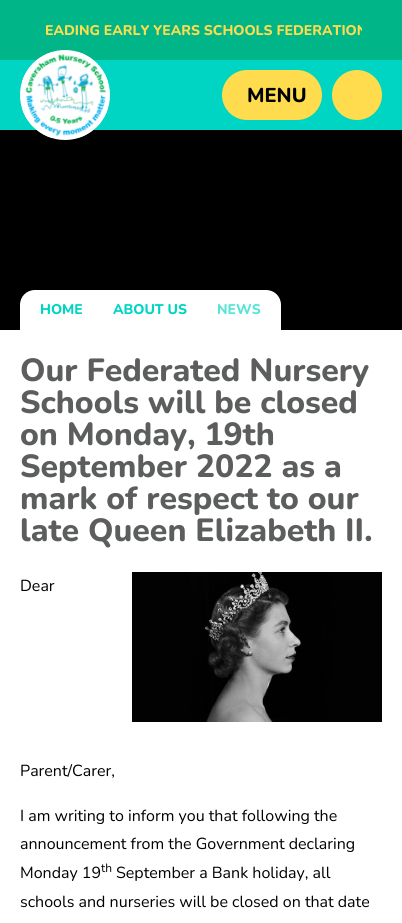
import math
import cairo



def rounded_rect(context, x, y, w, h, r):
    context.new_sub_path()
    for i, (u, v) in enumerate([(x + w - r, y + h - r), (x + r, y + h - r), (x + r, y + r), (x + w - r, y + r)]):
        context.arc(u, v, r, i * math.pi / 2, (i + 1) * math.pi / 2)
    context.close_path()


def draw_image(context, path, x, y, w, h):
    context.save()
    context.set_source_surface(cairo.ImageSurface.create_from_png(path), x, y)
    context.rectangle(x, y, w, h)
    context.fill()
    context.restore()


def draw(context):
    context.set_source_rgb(1, 1, 1)
    context.paint()
    context.set_source_rgb(0, 182 / 255, 136 / 255)
    context.rectangle(0, 0, 402, 60)
    context.fill()
    context.set_source_rgb(0, 213 / 255, 195 / 255)
    context.rectangle(0, 60, 402, 70)
    context.fill()
    context.set_source_rgb(0, 0, 0)
    context.rectangle(0, 130, 402, 200)
    context.fill()
    context.set_source_rgb(1, 1, 1)
    context.arc(65, 95, 45, 0, 2 * math.pi)
    context.fill()
    draw_image(context, "images/1.png", 22, 52, 86, 86)
    context.set_source_rgb(254 / 255, 220 / 255, 77 / 255)
    rounded_rect(context, 222, 70, 100, 50, 25)
    context.fill()
    context.arc(357, 95, 25, 0, 2 * math.pi)
    context.fill()
    context.set_source_rgb(1, 1, 1)
    context.new_path()
    context.move_to(35, 290)
    context.line_to(266, 290)
    context.curve_to(274.5, 290, 281, 296.5, 281, 305)
    context.line_to(281, 330)
    context.line_to(20, 330)
    context.line_to(20, 305)
    context.curve_to(20, 296.5, 26.5, 290, 35, 290)
    context.close_path()
    context.fill()
    draw_image(context, "images/2.png", 132, 572, 250, 150)
    context.save()
    context.rectangle(40, 0, 322, 60)
    context.clip()
    context.select_font_face("Nunito ExtraBold")
    context.set_font_size(14)
    context.set_source_rgb(254 / 255, 220 / 255, 77 / 255)
    context.move_to(45, 35)
    context.show_text("EADING EARLY YEARS SCHOOLS FEDERATION")
    context.restore()
    context.select_font_face("Nunito ExtraBold")
    context.set_font_size(20)
    context.set_source_rgb(0, 0, 0)
    context.move_to(247, 102)
    context.show_text("MENU")
    context.set_font_size(14)
    context.set_source_rgb(0, 213 / 255, 195 / 255)
    context.move_to(40, 314)
    context.show_text("HOME")
    context.move_to(113, 314)
    context.show_text("ABOUT US")
    context.set_source_rgb(89 / 255, 228 / 255, 216 / 255)
    context.move_to(217, 314)
    context.show_text("NEWS")
    context.set_font_size(32)
    context.set_source_rgb(91 / 255, 94 / 255, 93 / 255)
    context.move_to(20, 381)
    context.show_text("Our Federated Nursery")
    context.move_to(20, 413)
    context.show_text("Schools will be closed")
    context.move_to(20, 445)
    context.show_text("on Monday, 19th")
    context.move_to(20, 477)
    context.show_text("September 2022 as a")
    context.move_to(20, 509)
    context.show_text("mark of respect to our")
    context.move_to(20, 541)
    context.show_text("late Queen Elizabeth II.")
    context.select_font_face("Nunito")
    context.set_font_size(16)
    context.set_source_rgb(0, 0, 0)
    context.move_to(20, 591)
    context.show_text("Dear")
    context.move_to(20, 776)
    context.show_text("Parent/Carer,")
    context.move_to(20, 821)
    context.show_text("I am writing to inform you that following the")
    context.move_to(20, 849)
    context.show_text("announcement from the Government declaring")
    context.move_to(20, 878)
    context.show_text("Monday 19")
    context.set_font_size(12)
    context.move_to(101, 872)
    context.show_text("th")
    context.set_font_size(16)
    context.move_to(116, 878)
    context.show_text("September a Bank holiday, all")
    context.move_to(20, 907)
    context.show_text("schools and nurseries will be closed on that date")


surface = cairo.ImageSurface(cairo.Format.RGB24, 402, 923)
context = cairo.Context(surface)
options = cairo.FontOptions()
options.set_hint_metrics(cairo.HintMetrics.OFF)
options.set_hint_style(cairo.HintStyle.NONE)
context.set_font_options(options)
context.set_miter_limit(4)
draw(context)
surface.write_to_png("out.png")
